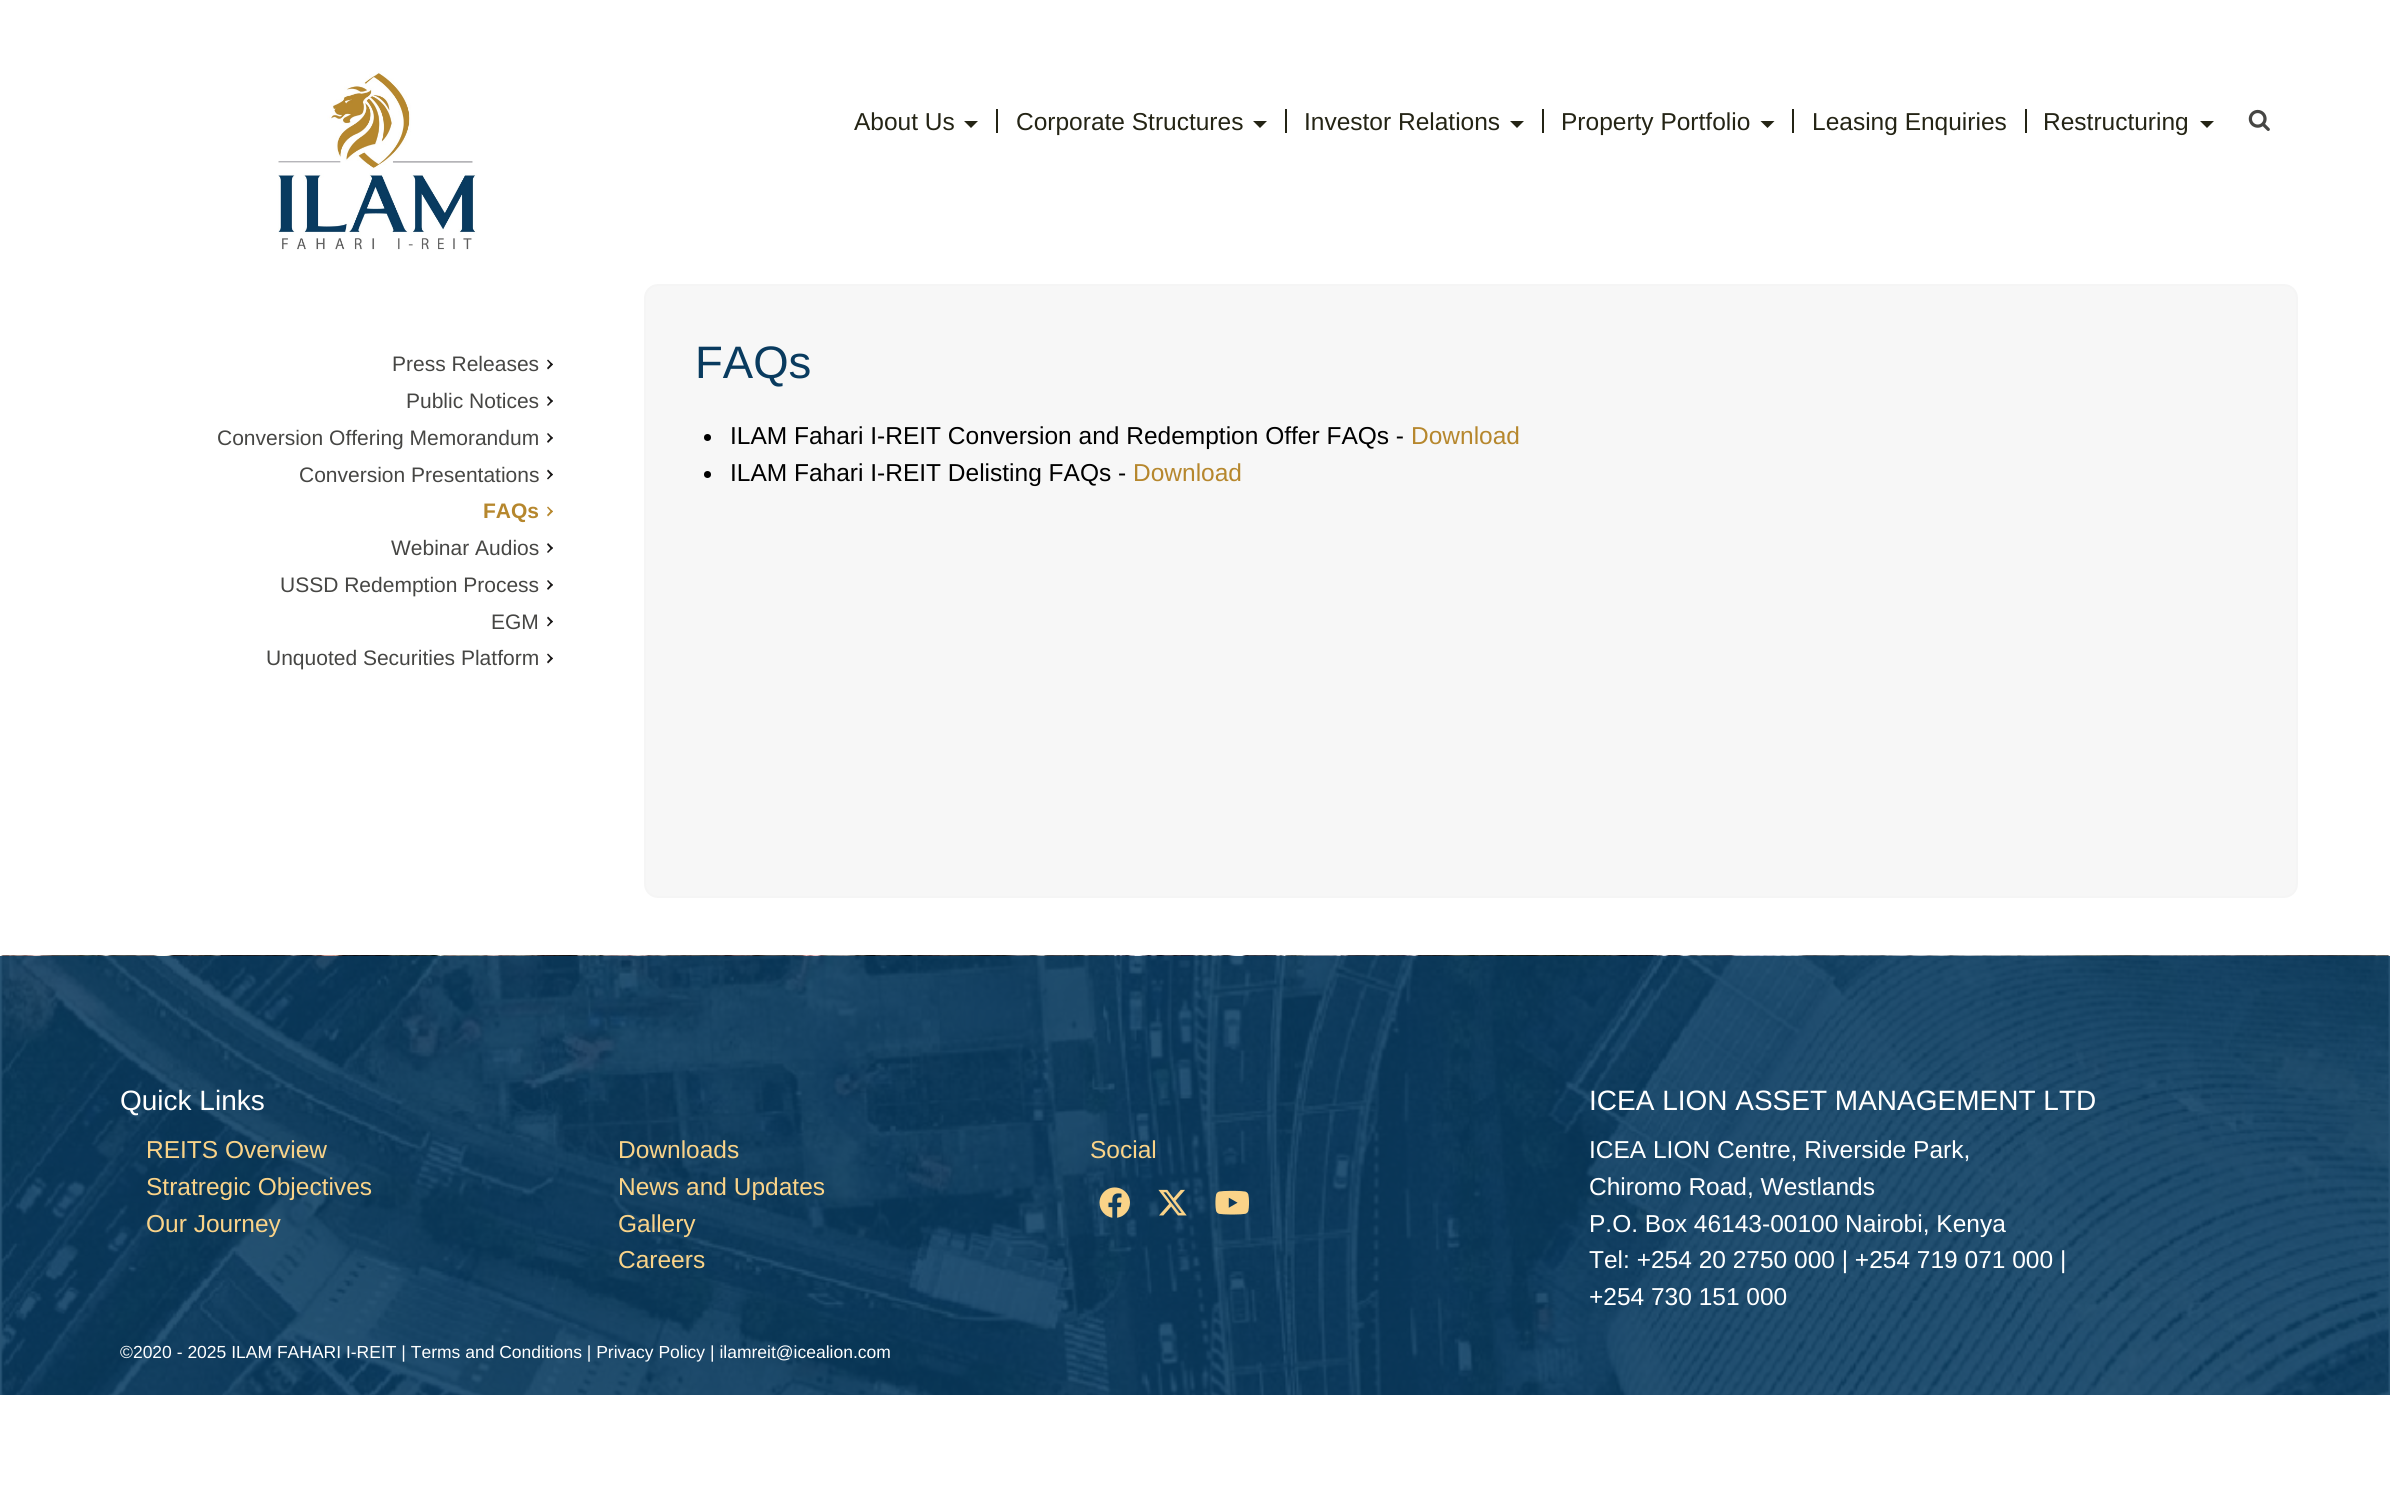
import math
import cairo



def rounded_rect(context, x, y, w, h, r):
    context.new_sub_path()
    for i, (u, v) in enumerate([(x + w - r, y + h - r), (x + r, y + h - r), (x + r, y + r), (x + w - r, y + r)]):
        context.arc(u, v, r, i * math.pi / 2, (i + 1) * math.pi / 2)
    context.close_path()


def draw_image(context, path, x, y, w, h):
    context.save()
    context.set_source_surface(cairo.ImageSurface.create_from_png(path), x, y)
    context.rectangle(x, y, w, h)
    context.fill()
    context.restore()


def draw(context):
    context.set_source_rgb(1, 1, 1)
    context.paint()
    draw_image(context, "images/1.png", 278, 71, 199, 179)
    context.set_source_rgb(36 / 255, 36 / 255, 21 / 255)
    context.rectangle(996, 109, 2, 24)
    context.fill()
    context.new_path()
    context.move_to(964, 121)
    context.line_to(978, 121)
    context.line_to(971, 128)
    context.close_path()
    context.fill()
    context.rectangle(1285, 109, 2, 24)
    context.fill()
    context.new_path()
    context.move_to(1253, 121)
    context.line_to(1267, 121)
    context.line_to(1260, 128)
    context.close_path()
    context.fill()
    context.rectangle(1542, 109, 2, 24)
    context.fill()
    context.new_path()
    context.move_to(1510, 121)
    context.line_to(1524, 121)
    context.line_to(1517, 128)
    context.close_path()
    context.fill()
    context.rectangle(1792, 109, 2, 24)
    context.fill()
    context.new_path()
    context.move_to(1760.5, 121)
    context.line_to(1774.5, 121)
    context.line_to(1767.5, 128)
    context.close_path()
    context.fill()
    context.rectangle(2025, 109, 2, 24)
    context.fill()
    context.new_path()
    context.move_to(2200, 121)
    context.line_to(2214, 121)
    context.line_to(2207, 128)
    context.close_path()
    context.fill()
    draw_image(context, "images/2.png", 2248, 109, 22, 22)
    context.set_source_rgb(25 / 255, 23 / 255, 23 / 255)
    context.new_path()
    context.move_to(547, 360.5)
    context.line_to(548, 359.5)
    context.line_to(553, 364.5)
    context.line_to(551.5, 365.5)
    context.close_path()
    context.fill()
    context.new_path()
    context.move_to(547, 368)
    context.line_to(551.5, 363)
    context.line_to(553, 364.5)
    context.line_to(548, 369.5)
    context.close_path()
    context.fill()
    context.new_path()
    context.move_to(547, 397.5)
    context.line_to(548, 396)
    context.line_to(553, 401)
    context.line_to(551.5, 402.5)
    context.close_path()
    context.fill()
    context.new_path()
    context.move_to(547, 405)
    context.line_to(551.5, 400)
    context.line_to(553, 401)
    context.line_to(548, 406)
    context.close_path()
    context.fill()
    context.new_path()
    context.move_to(547, 434)
    context.line_to(548, 433)
    context.line_to(553, 438)
    context.line_to(551.5, 439)
    context.close_path()
    context.fill()
    context.new_path()
    context.move_to(547, 441.5)
    context.line_to(551.5, 436.5)
    context.line_to(553, 438)
    context.line_to(548, 443)
    context.close_path()
    context.fill()
    context.new_path()
    context.move_to(547, 471)
    context.line_to(548, 469.5)
    context.line_to(553, 474.5)
    context.line_to(551.5, 476)
    context.close_path()
    context.fill()
    context.new_path()
    context.move_to(547, 478.5)
    context.line_to(551.5, 473.5)
    context.line_to(553, 474.5)
    context.line_to(548, 479.5)
    context.close_path()
    context.fill()
    context.set_source_rgb(182 / 255, 135 / 255, 45 / 255)
    context.new_path()
    context.move_to(547, 507.5)
    context.line_to(548, 506.5)
    context.line_to(553, 511.5)
    context.line_to(551.5, 512.5)
    context.close_path()
    context.fill()
    context.new_path()
    context.move_to(547, 515)
    context.line_to(551.5, 510)
    context.line_to(553, 511.5)
    context.line_to(548, 516.5)
    context.close_path()
    context.fill()
    context.set_source_rgb(25 / 255, 23 / 255, 23 / 255)
    context.new_path()
    context.move_to(547, 544.5)
    context.line_to(548, 543)
    context.line_to(553, 548)
    context.line_to(551.5, 549.5)
    context.close_path()
    context.fill()
    context.new_path()
    context.move_to(547, 552)
    context.line_to(551.5, 547)
    context.line_to(553, 548)
    context.line_to(548, 553)
    context.close_path()
    context.fill()
    context.new_path()
    context.move_to(547, 581)
    context.line_to(548, 580)
    context.line_to(553, 585)
    context.line_to(551.5, 586)
    context.close_path()
    context.fill()
    context.new_path()
    context.move_to(547, 588.5)
    context.line_to(551.5, 583.5)
    context.line_to(553, 585)
    context.line_to(548, 590)
    context.close_path()
    context.fill()
    context.new_path()
    context.move_to(547, 618)
    context.line_to(548, 616.5)
    context.line_to(553, 621.5)
    context.line_to(551.5, 623)
    context.close_path()
    context.fill()
    context.new_path()
    context.move_to(547, 625.5)
    context.line_to(551.5, 620.5)
    context.line_to(553, 621.5)
    context.line_to(548, 626.5)
    context.close_path()
    context.fill()
    context.new_path()
    context.move_to(547, 654.5)
    context.line_to(548, 653.5)
    context.line_to(553, 658.5)
    context.line_to(551.5, 659.5)
    context.close_path()
    context.fill()
    context.new_path()
    context.move_to(547, 662)
    context.line_to(551.5, 657)
    context.line_to(553, 658.5)
    context.line_to(548, 663.5)
    context.close_path()
    context.fill()
    context.set_source_rgb(247 / 255, 247 / 255, 247 / 255)
    rounded_rect(context, 645, 285, 1652, 612, 13)
    context.fill_preserve()
    context.set_source_rgb(245 / 255, 245 / 255, 245 / 255)
    context.stroke()
    context.set_source_rgb(0, 0, 0)
    context.arc(707.5, 437.5, 3.5, 0, 2 * math.pi)
    context.fill()
    context.arc(707.5, 474.5, 3.5, 0, 2 * math.pi)
    context.fill()
    draw_image(context, "images/3.png", 0, 955, 2390, 440)
    draw_image(context, "images/4.png", 1099, 1187, 31, 31)
    draw_image(context, "images/5.png", 1158, 1189, 29, 27)
    draw_image(context, "images/6.png", 1215, 1190, 34, 25)
    context.select_font_face("Liberation Sans")
    context.set_font_size(24.5)
    context.set_source_rgb(36 / 255, 36 / 255, 21 / 255)
    context.move_to(854, 130)
    context.show_text("About Us")
    context.move_to(1016, 130)
    context.show_text("Corporate Structures")
    context.move_to(1304, 130)
    context.show_text("Investor Relations")
    context.move_to(1561, 130)
    context.show_text("Property Portfolio")
    context.move_to(1812, 130)
    context.show_text("Leasing Enquiries")
    context.move_to(2043, 130)
    context.show_text("Restructuring")
    context.set_font_size(21)
    context.set_source_rgb(70 / 255, 70 / 255, 68 / 255)
    context.move_to(392, 371)
    context.show_text("Press Releases")
    context.move_to(406, 408)
    context.show_text("Public Notices")
    context.move_to(217, 445)
    context.show_text("Conversion Offering Memorandum")
    context.move_to(299, 482)
    context.show_text("Conversion Presentations")
    context.select_font_face("Liberation Sans", cairo.FontSlant.NORMAL, cairo.FontWeight.BOLD)
    context.set_source_rgb(182 / 255, 135 / 255, 45 / 255)
    context.move_to(483, 518)
    context.show_text("FAQs")
    context.select_font_face("Liberation Sans")
    context.set_source_rgb(70 / 255, 70 / 255, 68 / 255)
    context.move_to(391, 555)
    context.show_text("Webinar Audios")
    context.move_to(280, 592)
    context.show_text("USSD Redemption Process")
    context.move_to(491, 629)
    context.show_text("EGM")
    context.move_to(266, 665)
    context.show_text("Unquoted Securities Platform")
    context.set_font_size(45.5)
    context.set_source_rgb(9 / 255, 59 / 255, 95 / 255)
    context.move_to(695, 378)
    context.show_text("FAQs")
    context.set_font_size(24.5)
    context.set_source_rgb(0, 0, 0)
    context.move_to(730, 444)
    context.show_text("ILAM Fahari I-REIT Conversion and Redemption Offer FAQs -")
    context.set_source_rgb(182 / 255, 135 / 255, 45 / 255)
    context.move_to(1411, 444)
    context.show_text("Download")
    context.set_source_rgb(0, 0, 0)
    context.move_to(730, 481)
    context.show_text("ILAM Fahari I-REIT Delisting FAQs -")
    context.set_source_rgb(182 / 255, 135 / 255, 45 / 255)
    context.move_to(1133, 481)
    context.show_text("Download")
    context.set_font_size(28)
    context.set_source_rgb(1, 1, 1)
    context.move_to(120, 1110)
    context.show_text("Quick Links")
    context.set_font_size(24.5)
    context.set_source_rgb(250 / 255, 211 / 255, 136 / 255)
    context.move_to(146, 1158)
    context.show_text("REITS Overview")
    context.move_to(146, 1195)
    context.show_text("Stratregic Objectives")
    context.move_to(146, 1232)
    context.show_text("Our Journey")
    context.move_to(618, 1158)
    context.show_text("Downloads")
    context.move_to(618, 1195)
    context.show_text("News and Updates")
    context.move_to(618, 1232)
    context.show_text("Gallery")
    context.move_to(618, 1268)
    context.show_text("Careers")
    context.move_to(1090, 1158)
    context.show_text("Social")
    context.set_font_size(28)
    context.set_source_rgb(1, 1, 1)
    context.move_to(1589, 1110)
    context.show_text("ICEA LION ASSET MANAGEMENT LTD")
    context.set_font_size(24.5)
    context.move_to(1589, 1158)
    context.show_text("ICEA LION Centre, Riverside Park,")
    context.move_to(1589, 1195)
    context.show_text("Chiromo Road, Westlands")
    context.move_to(1589, 1232)
    context.show_text("P.O. Box 46143-00100 Nairobi, Kenya")
    context.move_to(1589, 1268)
    context.show_text("Tel: +254 20 2750 000 | +254 719 071 000 |")
    context.move_to(1589, 1305)
    context.show_text("+254 730 151 000")
    context.set_font_size(17.5)
    context.move_to(120, 1358)
    context.show_text("©2020 - 2025 ILAM FAHARI I-REIT | Terms and Conditions | Privacy Policy | ilamreit@icealion.com")


surface = cairo.ImageSurface(cairo.Format.RGB24, 2390, 1498)
context = cairo.Context(surface)
options = cairo.FontOptions()
options.set_hint_metrics(cairo.HintMetrics.OFF)
options.set_hint_style(cairo.HintStyle.NONE)
context.set_font_options(options)
context.set_miter_limit(4)
draw(context)
surface.write_to_png("out.png")
